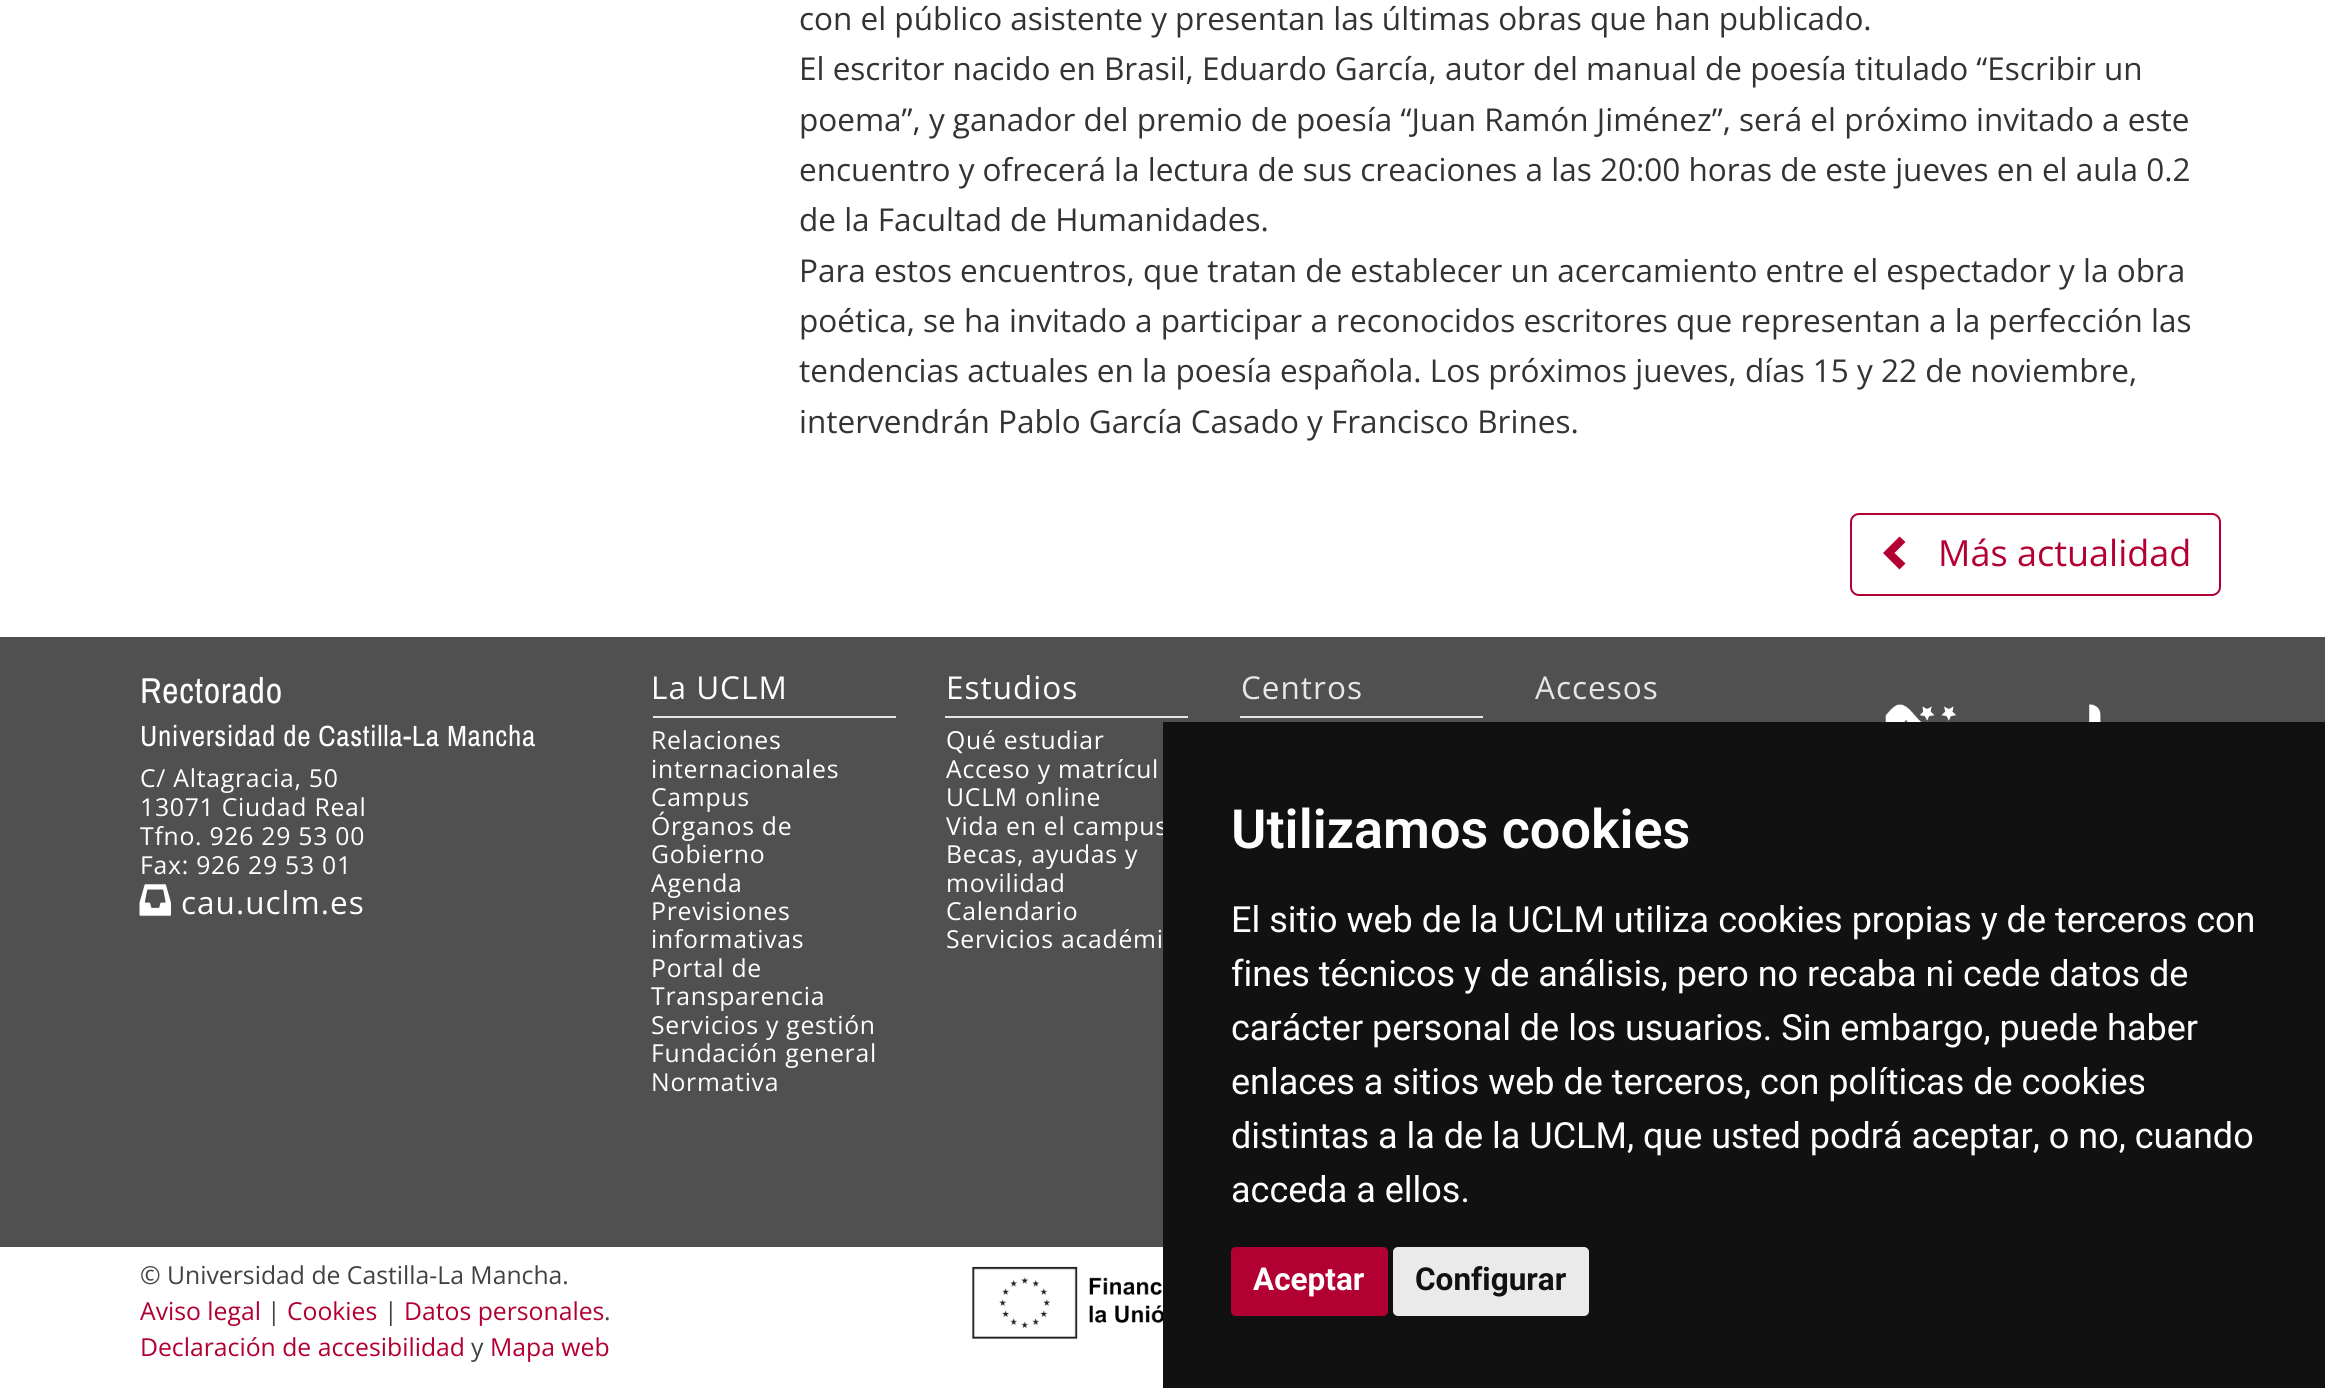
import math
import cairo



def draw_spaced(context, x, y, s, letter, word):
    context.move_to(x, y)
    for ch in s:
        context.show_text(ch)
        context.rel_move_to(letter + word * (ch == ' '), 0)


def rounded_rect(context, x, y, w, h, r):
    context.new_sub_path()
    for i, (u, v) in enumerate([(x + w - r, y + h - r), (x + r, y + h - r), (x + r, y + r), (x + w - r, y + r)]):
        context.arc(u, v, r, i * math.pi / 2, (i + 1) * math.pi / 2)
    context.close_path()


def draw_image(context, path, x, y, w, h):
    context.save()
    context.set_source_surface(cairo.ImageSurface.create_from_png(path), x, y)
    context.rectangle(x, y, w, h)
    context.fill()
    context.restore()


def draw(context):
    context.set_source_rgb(1, 1, 1)
    context.paint()
    rounded_rect(context, 1851, 514, 369, 81, 8)
    context.set_source_rgb(179 / 255, 0, 51 / 255)
    context.stroke()
    context.new_path()
    context.move_to(1905.5, 542)
    context.line_to(1894.5, 553)
    context.line_to(1905.5, 563.5)
    context.line_to(1899.5, 569.5)
    context.line_to(1883, 553)
    context.line_to(1899.5, 536.5)
    context.close_path()
    context.fill()
    context.set_source_rgb(80 / 255, 80 / 255, 80 / 255)
    context.rectangle(0, 637, 2325, 610)
    context.fill()
    draw_image(context, "images/1.png", 139, 884, 32, 32)
    context.set_source_rgb(230 / 255, 230 / 255, 230 / 255)
    context.rectangle(653, 716, 243, 2)
    context.fill()
    context.rectangle(945, 716, 243, 2)
    context.fill()
    context.rectangle(1240, 716, 243, 2)
    context.fill()
    draw_image(context, "images/2.png", 1885, 704, 72, 18)
    draw_image(context, "images/3.png", 2089, 704, 12, 18)
    draw_image(context, "images/4.png", 972, 1266, 191, 73)
    context.select_font_face("Open Sans")
    context.set_font_size(31.5)
    context.set_source_rgb(51 / 255, 51 / 255, 51 / 255)
    context.move_to(799, 30)
    context.show_text("con el público asistente y presentan las últimas obras que han publicado.")
    context.move_to(799, 80)
    context.show_text("El escritor nacido en Brasil, Eduardo García, autor del manual de poesía titulado “Escribir un")
    context.move_to(799, 131)
    context.show_text("poema”, y ganador del premio de poesía “Juan Ramón Jiménez”, será el próximo invitado a este")
    context.move_to(799, 181)
    context.show_text("encuentro y ofrecerá la lectura de sus creaciones a las 20:00 horas de este jueves en el aula 0.2")
    context.move_to(799, 231)
    context.show_text("de la Facultad de Humanidades.")
    context.move_to(799, 282)
    context.show_text("Para estos encuentros, que tratan de establecer un acercamiento entre el espectador y la obra")
    context.move_to(799, 332)
    context.show_text("poética, se ha invitado a participar a reconocidos escritores que representan a la perfección las")
    context.move_to(799, 382)
    context.show_text("tendencias actuales en la poesía española. Los próximos jueves, días 15 y 22 de noviembre,")
    context.move_to(799, 433)
    context.show_text("intervendrán Pablo García Casado y Francisco Brines.")
    context.set_font_size(36)
    context.set_source_rgb(179 / 255, 0, 51 / 255)
    context.move_to(1938, 566)
    context.show_text("Más actualidad")
    context.select_font_face("Archivo Narrow")
    context.set_source_rgb(1, 1, 1)
    draw_spaced(context, 140, 703, "Rectorado", 0.75, 0)
    context.set_font_size(29.25)
    draw_spaced(context, 140, 746, "Universidad de Castilla-La Mancha", 0.6, 0)
    context.select_font_face("Open Sans")
    context.set_font_size(24.75)
    draw_spaced(context, 140, 787, "C/ Altagracia, 50", 0.75, 0)
    draw_spaced(context, 140, 816, "13071 Ciudad Real", 0.75, 0)
    draw_spaced(context, 140, 845, "Tfno. 926 29 53 00", 0.75, 0)
    draw_spaced(context, 140, 874, "Fax: 926 29 53 01", 0.75, 0)
    context.set_font_size(31.5)
    draw_spaced(context, 181, 914, "cau.uclm.es", 1, 0)
    draw_spaced(context, 651, 699, "La UCLM", 1, 0)
    context.set_font_size(24.75)
    draw_spaced(context, 651, 749, "Relaciones", 0.75, 0)
    draw_spaced(context, 651, 778, "internacionales", 0.75, 0)
    draw_spaced(context, 651, 806, "Campus", 0.75, 0)
    draw_spaced(context, 651, 835, "Órganos de", 0.75, 0)
    draw_spaced(context, 651, 863, "Gobierno", 0.75, 0)
    draw_spaced(context, 651, 892, "Agenda", 0.75, 0)
    draw_spaced(context, 651, 920, "Previsiones", 0.75, 0)
    draw_spaced(context, 651, 948, "informativas", 0.75, 0)
    draw_spaced(context, 651, 977, "Portal de", 0.75, 0)
    draw_spaced(context, 651, 1005, "Transparencia", 0.75, 0)
    draw_spaced(context, 651, 1034, "Servicios y gestión", 0.75, 0)
    draw_spaced(context, 651, 1062, "Fundación general", 0.75, 0)
    draw_spaced(context, 651, 1091, "Normativa", 0.75, 0)
    context.set_font_size(31.5)
    draw_spaced(context, 946, 699, "Estudios", 1, 0)
    context.set_font_size(24.75)
    draw_spaced(context, 946, 749, "Qué estudiar", 0.75, 0)
    draw_spaced(context, 946, 778, "Acceso y matrícul", 0.75, 0)
    draw_spaced(context, 946, 806, "UCLM online", 0.75, 0)
    draw_spaced(context, 946, 835, "Vida en el campus", 0.75, 0)
    draw_spaced(context, 946, 863, "Becas, ayudas y", 0.75, 0)
    draw_spaced(context, 946, 892, "movilidad", 0.75, 0)
    draw_spaced(context, 946, 920, "Calendario", 0.75, 0)
    draw_spaced(context, 946, 948, "Servicios académi", 0.75, 0)
    context.set_font_size(31.5)
    context.set_source_rgb(230 / 255, 230 / 255, 230 / 255)
    draw_spaced(context, 1241, 699, "Centros", 1, 0)
    draw_spaced(context, 1535, 699, "Accesos", 1, 0)
    context.set_font_size(24.75)
    context.set_source_rgb(66 / 255, 66 / 255, 65 / 255)
    context.move_to(140, 1284)
    context.show_text("© Universidad de Castilla-La Mancha.")
    context.set_source_rgb(179 / 255, 0, 51 / 255)
    context.move_to(140, 1320)
    context.show_text("Aviso legal")
    context.set_source_rgb(66 / 255, 66 / 255, 65 / 255)
    context.move_to(267, 1320)
    context.show_text("|")
    context.set_source_rgb(179 / 255, 0, 51 / 255)
    context.move_to(287, 1320)
    context.show_text("Cookies")
    context.set_source_rgb(66 / 255, 66 / 255, 65 / 255)
    context.move_to(384, 1320)
    context.show_text("|")
    context.set_source_rgb(179 / 255, 0, 51 / 255)
    context.move_to(404, 1320)
    context.show_text("Datos personales")
    context.set_source_rgb(66 / 255, 66 / 255, 65 / 255)
    context.move_to(604, 1320)
    context.show_text(".")
    context.set_source_rgb(179 / 255, 0, 51 / 255)
    context.move_to(140, 1356)
    context.show_text("Declaración de accesibilidad")
    context.set_source_rgb(66 / 255, 66 / 255, 65 / 255)
    context.move_to(471, 1356)
    context.show_text("y")
    context.set_source_rgb(179 / 255, 0, 51 / 255)
    context.move_to(490, 1356)
    context.show_text("Mapa web")
    context.set_source_rgb(17 / 255, 17 / 255, 17 / 255)
    context.rectangle(1163, 722, 1162, 666)
    context.fill()
    context.select_font_face("Roboto SemiBold")
    context.set_font_size(54)
    context.set_source_rgb(1, 1, 1)
    context.move_to(1231, 848)
    context.show_text("Utilizamos cookies")
    context.select_font_face("Roboto")
    context.set_font_size(36)
    context.move_to(1231, 932)
    context.show_text("El sitio web de la UCLM utiliza cookies propias y de terceros con")
    context.move_to(1231, 986)
    context.show_text("fines técnicos y de análisis, pero no recaba ni cede datos de")
    context.move_to(1231, 1040)
    context.show_text("carácter personal de los usuarios. Sin embargo, puede haber")
    context.move_to(1231, 1094)
    context.show_text("enlaces a sitios web de terceros, con políticas de cookies")
    context.move_to(1231, 1148)
    context.show_text("distintas a la de la UCLM, que usted podrá aceptar, o no, cuando")
    context.move_to(1231, 1202)
    context.show_text("acceda a ellos.")
    context.set_source_rgb(179 / 255, 0, 51 / 255)
    rounded_rect(context, 1231, 1247, 157, 69, 5)
    context.fill()
    context.select_font_face("Roboto", cairo.FontSlant.NORMAL, cairo.FontWeight.BOLD)
    context.set_font_size(31.5)
    context.set_source_rgb(1, 1, 1)
    context.move_to(1253, 1290)
    context.show_text("Aceptar")
    context.set_source_rgb(234 / 255, 234 / 255, 234 / 255)
    rounded_rect(context, 1393, 1247, 196, 69, 5)
    context.fill()
    context.set_source_rgb(17 / 255, 17 / 255, 17 / 255)
    context.move_to(1415, 1290)
    context.show_text("Configurar")


surface = cairo.ImageSurface(cairo.Format.RGB24, 2325, 1388)
context = cairo.Context(surface)
options = cairo.FontOptions()
options.set_hint_metrics(cairo.HintMetrics.OFF)
options.set_hint_style(cairo.HintStyle.NONE)
context.set_font_options(options)
context.set_miter_limit(4)
draw(context)
surface.write_to_png("out.png")
